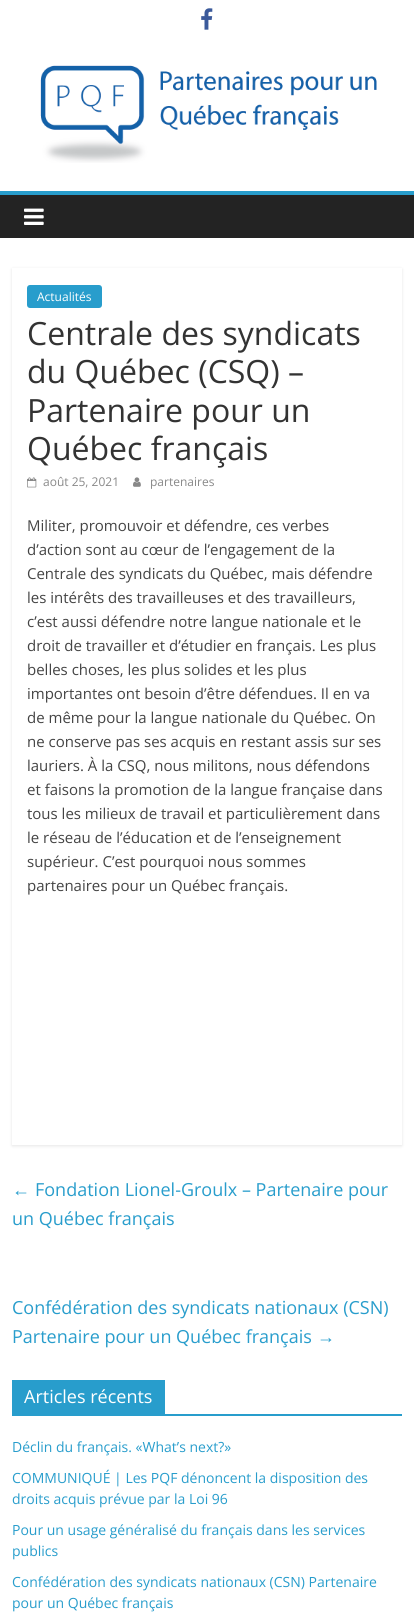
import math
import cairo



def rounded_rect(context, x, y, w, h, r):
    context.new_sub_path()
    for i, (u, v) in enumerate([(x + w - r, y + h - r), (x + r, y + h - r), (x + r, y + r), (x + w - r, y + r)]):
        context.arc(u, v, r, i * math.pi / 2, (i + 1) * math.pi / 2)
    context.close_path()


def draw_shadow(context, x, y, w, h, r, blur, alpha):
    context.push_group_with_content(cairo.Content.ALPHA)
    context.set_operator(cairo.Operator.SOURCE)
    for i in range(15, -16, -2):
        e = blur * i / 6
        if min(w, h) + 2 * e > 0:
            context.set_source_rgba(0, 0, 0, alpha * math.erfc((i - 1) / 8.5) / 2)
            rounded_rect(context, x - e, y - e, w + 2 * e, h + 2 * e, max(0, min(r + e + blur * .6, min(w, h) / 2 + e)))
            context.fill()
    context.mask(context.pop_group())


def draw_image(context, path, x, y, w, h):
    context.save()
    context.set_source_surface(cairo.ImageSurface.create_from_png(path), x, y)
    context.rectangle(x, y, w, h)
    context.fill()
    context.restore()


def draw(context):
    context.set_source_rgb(1, 1, 1)
    context.paint()
    draw_image(context, "images/1.png", 201, 8, 12, 22)
    draw_image(context, "images/2.png", 40, 65, 337, 98)
    context.set_source_rgb(35 / 255, 35 / 255, 35 / 255)
    context.rectangle(0, 195, 414, 43)
    context.fill()
    context.set_source_rgb(40 / 255, 157 / 255, 204 / 255)
    context.rectangle(0, 191, 414, 4)
    context.fill()
    draw_image(context, "images/3.png", 24, 208, 20, 17)
    context.save()
    context.set_fill_rule(cairo.FillRule.EVEN_ODD)
    context.new_path()
    context.move_to(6, 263)
    context.line_to(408, 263)
    context.line_to(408, 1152)
    context.line_to(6, 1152)
    context.close_path()
    context.move_to(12, 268)
    context.line_to(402, 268)
    context.line_to(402, 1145)
    context.line_to(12, 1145)
    context.close_path()
    context.clip()
    context.set_source_rgb(0, 0, 0)
    draw_shadow(context, 12, 269, 390, 877, 0, 1.5, 0.1)
    context.restore()
    rounded_rect(context, 27, 285, 75, 23, 3)
    context.fill()
    draw_image(context, "images/4.png", 27, 477, 10, 11)
    draw_image(context, "images/5.png", 133, 477, 8, 10)
    context.rectangle(12, 1414, 390, 2)
    context.fill()
    context.rectangle(12, 1380, 153, 34)
    context.fill()
    context.select_font_face("Open Sans")
    context.set_font_size(12)
    context.set_source_rgb(1, 1, 1)
    context.move_to(37, 301)
    context.show_text("Actualités")
    context.set_font_size(32)
    context.set_source_rgb(51 / 255, 51 / 255, 51 / 255)
    context.move_to(27, 345)
    context.show_text("Centrale des syndicats")
    context.move_to(27, 383)
    context.show_text("du Québec (CSQ) –")
    context.move_to(27, 422)
    context.show_text("Partenaire pour un")
    context.move_to(27, 460)
    context.show_text("Québec français")
    context.set_font_size(12)
    context.set_source_rgb(136 / 255, 136 / 255, 136 / 255)
    context.move_to(43, 486)
    context.show_text("août 25, 2021")
    context.move_to(150, 486)
    context.show_text("partenaires")
    context.set_font_size(15)
    context.set_source_rgb(68 / 255, 68 / 255, 68 / 255)
    context.move_to(27, 531)
    context.show_text("Militer, promouvoir et défendre, ces verbes")
    context.move_to(27, 555)
    context.show_text("d’action sont au cœur de l’engagement de la")
    context.move_to(27, 579)
    context.show_text("Centrale des syndicats du Québec, mais défendre")
    context.move_to(27, 603)
    context.show_text("les intérêts des travailleuses et des travailleurs,")
    context.move_to(27, 627)
    context.show_text("c’est aussi défendre notre langue nationale et le")
    context.move_to(27, 651)
    context.show_text("droit de travailler et d’étudier en français. Les plus")
    context.move_to(27, 675)
    context.show_text("belles choses, les plus solides et les plus")
    context.move_to(27, 699)
    context.show_text("importantes ont besoin d’être défendues. Il en va")
    context.move_to(27, 723)
    context.show_text("de même pour la langue nationale du Québec. On")
    context.move_to(27, 747)
    context.show_text("ne conserve pas ses acquis en restant assis sur ses")
    context.move_to(27, 771)
    context.show_text("lauriers. À la CSQ, nous militons, nous défendons")
    context.move_to(27, 795)
    context.show_text("et faisons la promotion de la langue française dans")
    context.move_to(27, 819)
    context.show_text("tous les milieux de travail et particulièrement dans")
    context.move_to(27, 843)
    context.show_text("le réseau de l’éducation et de l’enseignement")
    context.move_to(27, 867)
    context.show_text("supérieur. C’est pourquoi nous sommes")
    context.move_to(27, 891)
    context.show_text("partenaires pour un Québec français.")
    context.select_font_face("Liberation Serif")
    context.set_font_size(18)
    context.set_source_rgb(40 / 255, 157 / 255, 204 / 255)
    context.move_to(12, 1196)
    context.show_text("←")
    context.select_font_face("Open Sans")
    context.move_to(35, 1196)
    context.show_text("Fondation Lionel-Groulx – Partenaire pour")
    context.move_to(12, 1225)
    context.show_text("un Québec français")
    context.move_to(12, 1314)
    context.show_text("Confédération des syndicats nationaux (CSN)")
    context.move_to(12, 1343)
    context.show_text("Partenaire pour un Québec français")
    context.select_font_face("Liberation Serif")
    context.move_to(317, 1343)
    context.show_text("→")
    context.select_font_face("Open Sans")
    context.set_source_rgb(1, 1, 1)
    context.move_to(24, 1403)
    context.show_text("Articles récents")
    context.set_font_size(14)
    context.set_source_rgb(40 / 255, 157 / 255, 204 / 255)
    context.move_to(12, 1452)
    context.show_text("Déclin du français. «What’s next?»")
    context.move_to(12, 1483)
    context.show_text("COMMUNIQUÉ | Les PQF dénoncent la disposition des")
    context.move_to(12, 1504)
    context.show_text("droits acquis prévue par la Loi 96")
    context.move_to(12, 1535)
    context.show_text("Pour un usage généralisé du français dans les services")
    context.move_to(12, 1556)
    context.show_text("publics")
    context.move_to(12, 1587)
    context.show_text("Confédération des syndicats nationaux (CSN) Partenaire")
    context.move_to(12, 1608)
    context.show_text("pour un Québec français")


surface = cairo.ImageSurface(cairo.Format.RGB24, 414, 1618)
context = cairo.Context(surface)
options = cairo.FontOptions()
options.set_hint_metrics(cairo.HintMetrics.OFF)
options.set_hint_style(cairo.HintStyle.NONE)
context.set_font_options(options)
context.set_miter_limit(4)
draw(context)
surface.write_to_png("out.png")
